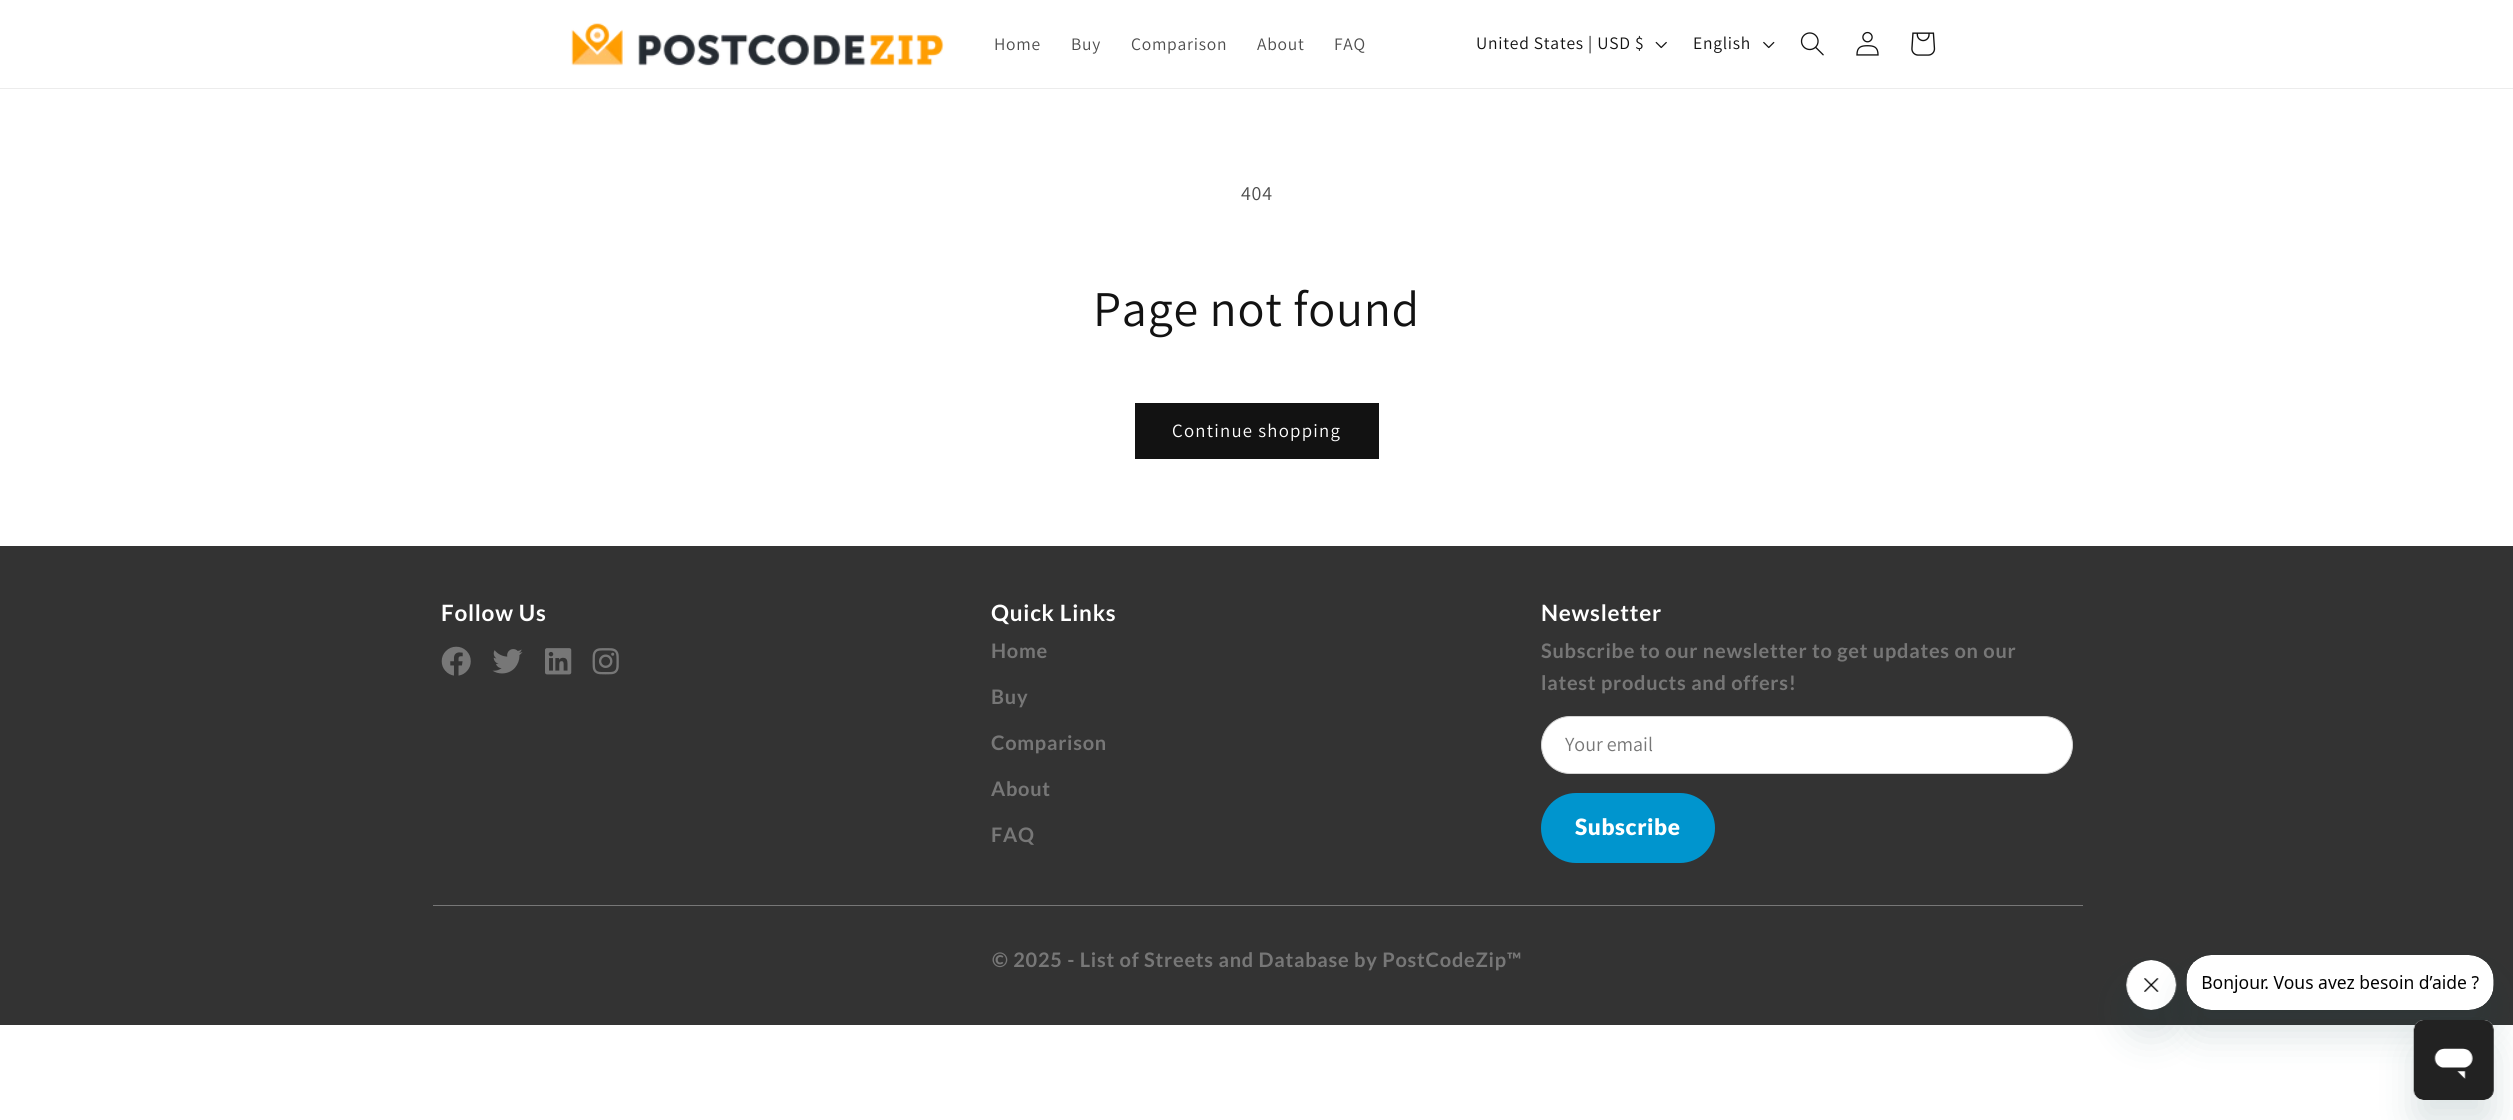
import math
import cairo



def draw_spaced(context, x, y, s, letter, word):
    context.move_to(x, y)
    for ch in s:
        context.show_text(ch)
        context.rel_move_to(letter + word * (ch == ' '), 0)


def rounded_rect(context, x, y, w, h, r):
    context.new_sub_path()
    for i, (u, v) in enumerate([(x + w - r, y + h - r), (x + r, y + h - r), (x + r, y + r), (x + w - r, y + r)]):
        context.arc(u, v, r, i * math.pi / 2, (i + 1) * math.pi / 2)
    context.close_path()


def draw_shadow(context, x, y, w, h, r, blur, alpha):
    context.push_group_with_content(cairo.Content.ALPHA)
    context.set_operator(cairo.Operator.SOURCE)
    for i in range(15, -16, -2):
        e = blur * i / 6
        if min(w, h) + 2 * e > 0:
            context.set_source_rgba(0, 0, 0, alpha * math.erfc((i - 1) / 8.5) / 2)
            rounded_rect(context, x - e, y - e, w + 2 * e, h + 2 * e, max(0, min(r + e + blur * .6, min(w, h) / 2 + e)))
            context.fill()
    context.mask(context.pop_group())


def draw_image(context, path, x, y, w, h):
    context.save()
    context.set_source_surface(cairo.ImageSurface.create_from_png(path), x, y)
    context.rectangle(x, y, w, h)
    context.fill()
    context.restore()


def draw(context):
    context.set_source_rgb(1, 1, 1)
    context.paint()
    context.set_source_rgb(236 / 255, 236 / 255, 236 / 255)
    context.rectangle(0, 88, 2513, 1)
    context.fill()
    draw_image(context, "images/1.png", 571, 23, 373, 43)
    draw_image(context, "images/2.png", 1655, 41, 12, 8)
    draw_image(context, "images/3.png", 1763, 41, 12, 8)
    draw_image(context, "images/4.png", 1800, 32, 24, 24)
    draw_image(context, "images/5.png", 1856, 31, 23, 25)
    draw_image(context, "images/6.png", 1911, 32, 25, 24)
    context.set_source_rgb(18 / 255, 18 / 255, 18 / 255)
    context.rectangle(1135, 403, 244, 56)
    context.fill()
    context.set_source_rgb(51 / 255, 51 / 255, 51 / 255)
    context.rectangle(0, 546, 2513, 479)
    context.fill()
    context.set_source_rgb(119 / 255, 119 / 255, 119 / 255)
    context.rectangle(433, 905, 1650, 1)
    context.fill()
    draw_image(context, "images/7.png", 441, 646, 30, 30)
    draw_image(context, "images/8.png", 492, 649, 31, 25)
    draw_image(context, "images/9.png", 545, 648, 27, 27)
    draw_image(context, "images/10.png", 592, 648, 27, 27)
    context.set_source_rgb(1, 1, 1)
    rounded_rect(context, 1541.5, 716.5, 531, 57, 28.5)
    context.fill_preserve()
    context.set_source_rgb(212 / 255, 212 / 255, 212 / 255)
    context.set_line_width(1)
    context.stroke()
    context.set_source_rgb(0, 149 / 255, 206 / 255)
    rounded_rect(context, 1542.5, 794.5, 171, 67, 33.5)
    context.fill_preserve()
    context.set_line_width(3)
    context.stroke()
    context.set_source_rgb(23 / 255, 73 / 255, 77 / 255)
    draw_shadow(context, 2126, 985, 50, 50, 25, 19, 0.15)
    draw_image(context, "images/12.png", 2126, 960, 51, 50)
    draw_shadow(context, 2186, 980, 308, 55, 25, 19, 0.15)
    draw_image(context, "images/11.png", 2186, 955, 308, 55)
    draw_shadow(context, 2414, 1045, 80, 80, 10, 19, 0.15)
    draw_image(context, "images/13.png", 2413, 1020, 81, 80)
    context.select_font_face("Assistant")
    context.set_font_size(17.5)
    context.set_source_rgb(77 / 255, 77 / 255, 77 / 255)
    draw_spaced(context, 994, 50, "Home", 0.75, 0)
    draw_spaced(context, 1071, 50, "Buy", 0.75, 0)
    draw_spaced(context, 1131, 50, "Comparison", 0.75, 0)
    draw_spaced(context, 1257, 50, "About", 0.75, 0)
    draw_spaced(context, 1334, 50, "FAQ", 0.75, 0)
    context.set_source_rgb(18 / 255, 18 / 255, 18 / 255)
    draw_spaced(context, 1476, 49, "United States | USD $", 0.75, 0)
    draw_spaced(context, 1693, 49, "English", 0.75, 0)
    context.set_font_size(20)
    context.set_source_rgb(77 / 255, 77 / 255, 77 / 255)
    draw_spaced(context, 1241, 200, "404", 0.75, 0)
    context.set_font_size(50)
    context.set_source_rgb(18 / 255, 18 / 255, 18 / 255)
    draw_spaced(context, 1093, 326, "Page not found", 0.75, 0)
    context.set_font_size(18.75)
    context.set_source_rgb(1, 1, 1)
    draw_spaced(context, 1172, 437, "Continue shopping", 1.25, 0)
    context.select_font_face("Lato", cairo.FontSlant.NORMAL, cairo.FontWeight.BOLD)
    context.set_font_size(22.5)
    draw_spaced(context, 441, 621, "Follow Us", 0.75, 0)
    draw_spaced(context, 991, 621, "Quick Links", 0.75, 0)
    context.set_font_size(20)
    context.set_source_rgb(119 / 255, 119 / 255, 119 / 255)
    draw_spaced(context, 991, 658, "Home", 0.75, 0)
    draw_spaced(context, 991, 704, "Buy", 0.75, 0)
    draw_spaced(context, 991, 750, "Comparison", 0.75, 0)
    draw_spaced(context, 991, 796, "About", 0.75, 0)
    draw_spaced(context, 991, 842, "FAQ", 0.75, 0)
    context.set_font_size(22.5)
    context.set_source_rgb(1, 1, 1)
    draw_spaced(context, 1541, 621, "Newsletter", 0.75, 0)
    context.set_font_size(20)
    context.set_source_rgb(119 / 255, 119 / 255, 119 / 255)
    draw_spaced(context, 1541, 658, "Subscribe to our newsletter to get updates on our", 0.75, 0)
    draw_spaced(context, 1541, 690, "latest products and offers!", 0.75, 0)
    context.select_font_face("Assistant")
    context.move_to(1565, 751)
    context.show_text("Your email")
    context.select_font_face("Lato Black")
    context.set_font_size(22.5)
    context.set_source_rgb(1, 1, 1)
    draw_spaced(context, 1575, 835, "Subscribe", 0.6, 0)
    context.select_font_face("Lato", cairo.FontSlant.NORMAL, cairo.FontWeight.BOLD)
    context.set_font_size(20)
    context.set_source_rgb(119 / 255, 119 / 255, 119 / 255)
    draw_spaced(context, 992, 967, "© 2025 - List of Streets and Database by PostCodeZip™", 0.75, 0)


surface = cairo.ImageSurface(cairo.Format.RGB24, 2513, 1120)
context = cairo.Context(surface)
options = cairo.FontOptions()
options.set_hint_metrics(cairo.HintMetrics.OFF)
options.set_hint_style(cairo.HintStyle.NONE)
context.set_font_options(options)
context.set_miter_limit(4)
draw(context)
surface.write_to_png("out.png")
